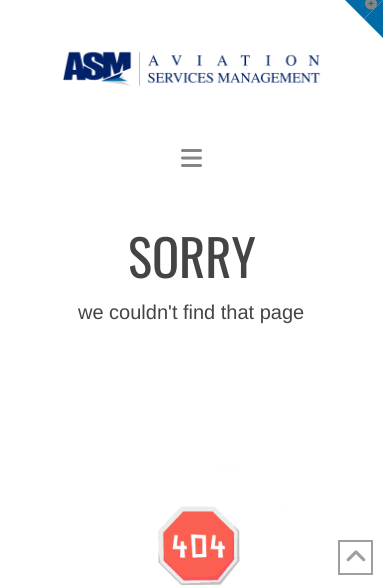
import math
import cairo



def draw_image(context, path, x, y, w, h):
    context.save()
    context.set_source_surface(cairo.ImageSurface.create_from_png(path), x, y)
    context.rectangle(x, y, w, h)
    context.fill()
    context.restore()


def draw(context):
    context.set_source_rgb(1, 1, 1)
    context.paint()
    context.set_source_rgb(0, 107 / 255, 166 / 255)
    context.new_path()
    context.move_to(345, 0)
    context.line_to(383, 0)
    context.line_to(364, 19)
    context.close_path()
    context.fill()
    context.new_path()
    context.move_to(383, 0)
    context.line_to(383, 38)
    context.line_to(364, 19)
    context.close_path()
    context.fill()
    draw_image(context, "images/1.png", 365, 0, 12, 10)
    draw_image(context, "images/2.png", 62, 51, 259, 35)
    draw_image(context, "images/3.png", 181, 149, 21, 18)
    draw_image(context, "images/4.png", 158, 467, 130, 118)
    context.rectangle(339, 541, 33, 33)
    context.set_source_rgb(159 / 255, 159 / 255, 159 / 255)
    context.stroke()
    draw_image(context, "images/5.png", 346, 550, 20, 12)
    context.select_font_face("Oswald")
    context.set_font_size(50.5)
    context.set_source_rgb(68 / 255, 68 / 255, 68 / 255)
    context.move_to(128, 278)
    context.show_text("SORRY")
    context.select_font_face("Liberation Sans")
    context.set_font_size(20)
    context.move_to(78, 319)
    context.show_text("we couldn't find that page")


surface = cairo.ImageSurface(cairo.Format.RGB24, 383, 585)
context = cairo.Context(surface)
options = cairo.FontOptions()
options.set_hint_metrics(cairo.HintMetrics.OFF)
options.set_hint_style(cairo.HintStyle.NONE)
context.set_font_options(options)
context.set_miter_limit(4)
draw(context)
surface.write_to_png("out.png")
